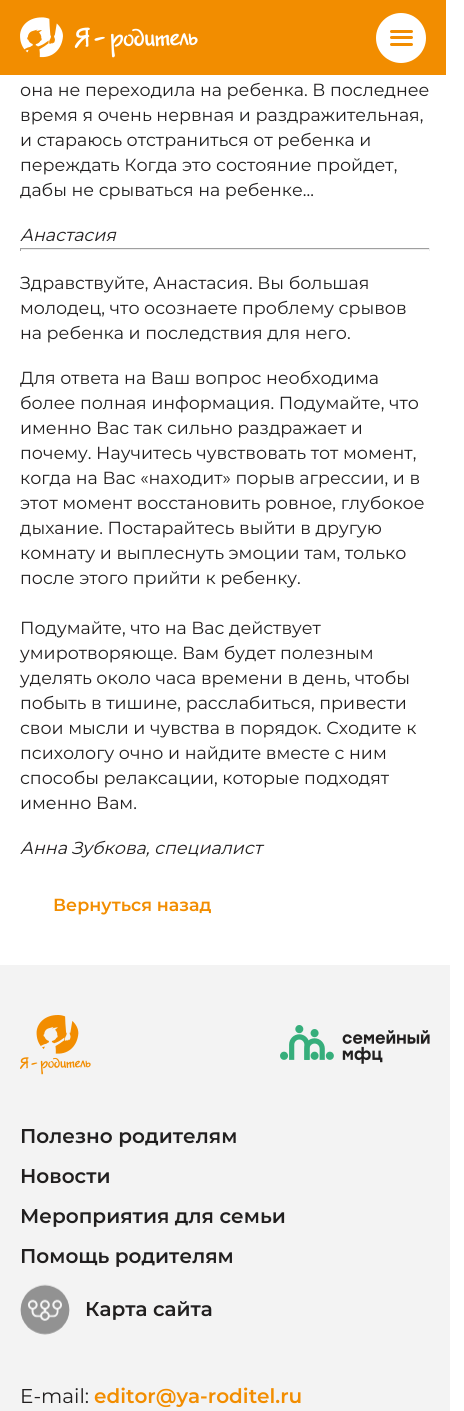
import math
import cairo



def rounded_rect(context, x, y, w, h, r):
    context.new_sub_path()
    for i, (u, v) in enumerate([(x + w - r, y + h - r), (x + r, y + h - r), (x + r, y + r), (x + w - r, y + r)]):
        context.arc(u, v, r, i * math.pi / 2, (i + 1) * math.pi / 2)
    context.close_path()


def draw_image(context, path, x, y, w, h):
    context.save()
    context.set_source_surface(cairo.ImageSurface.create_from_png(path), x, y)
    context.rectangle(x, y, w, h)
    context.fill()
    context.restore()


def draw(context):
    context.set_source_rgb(1, 1, 1)
    context.paint()
    context.set_source_rgb(242 / 255, 141 / 255, 0)
    context.rectangle(0, 0, 446, 75)
    context.fill()
    draw_image(context, "images/1.png", 20, 17, 178, 41)
    context.set_source_rgb(1, 1, 1)
    context.arc(401, 38, 25, 0, 2 * math.pi)
    context.fill()
    context.set_source_rgb(242 / 255, 141 / 255, 0)
    rounded_rect(context, 390, 30, 23, 3, 1.5)
    context.fill()
    rounded_rect(context, 390, 36, 23, 3, 1.5)
    context.fill()
    rounded_rect(context, 390, 43, 23, 3, 1.5)
    context.fill()
    context.set_source_rgb(159 / 255, 159 / 255, 159 / 255)
    context.rectangle(20, 248, 410, 1)
    context.fill()
    context.set_source_rgb(238 / 255, 238 / 255, 238 / 255)
    context.rectangle(429, 248, 1, 3)
    context.fill()
    context.rectangle(20, 249, 410, 1)
    context.fill()
    context.set_source_rgb(159 / 255, 159 / 255, 159 / 255)
    context.rectangle(20, 248, 1, 3)
    context.fill()
    context.set_source_rgb(243 / 255, 243 / 255, 243 / 255)
    context.rectangle(0, 965, 450, 446)
    context.fill()
    draw_image(context, "images/2.png", 20, 1015, 71, 60)
    draw_image(context, "images/3.png", 280, 1025, 150, 39)
    draw_image(context, "images/4.png", 20, 1284, 50, 51)
    context.select_font_face("Montserrat")
    context.set_font_size(17.5)
    context.set_source_rgb(33 / 255, 31 / 255, 31 / 255)
    context.move_to(20, 96)
    context.show_text("она не переходила на ребенка. В последнее")
    context.move_to(20, 121)
    context.show_text("время я очень нервная и раздражительная,")
    context.move_to(20, 146)
    context.show_text("и стараюсь отстраниться от ребенка и")
    context.move_to(20, 171)
    context.show_text("переждать Когда это состояние пройдет,")
    context.move_to(20, 196)
    context.show_text("дабы не срываться на ребенке...")
    context.select_font_face("Montserrat", cairo.FontSlant.ITALIC)
    context.move_to(20, 241)
    context.show_text("Анастасия")
    context.select_font_face("Montserrat")
    context.move_to(20, 289)
    context.show_text("Здравствуйте, Анастасия. Вы большая")
    context.move_to(20, 314)
    context.show_text("молодец, что осознаете проблему срывов")
    context.move_to(20, 339)
    context.show_text("на ребенка и последствия для него.")
    context.move_to(20, 384)
    context.show_text("Для ответа на Ваш вопрос необходима")
    context.move_to(20, 409)
    context.show_text("более полная информация. Подумайте, что")
    context.move_to(20, 434)
    context.show_text("именно Вас так сильно раздражает и")
    context.move_to(20, 459)
    context.show_text("почему. Научитесь чувствовать тот момент,")
    context.move_to(20, 484)
    context.show_text("когда на Вас «находит» порыв агрессии, и в")
    context.move_to(20, 509)
    context.show_text("этот момент восстановить ровное, глубокое")
    context.move_to(20, 534)
    context.show_text("дыхание. Постарайтесь выйти в другую")
    context.move_to(20, 559)
    context.show_text("комнату и выплеснуть эмоции там, только")
    context.move_to(20, 584)
    context.show_text("после этого прийти к ребенку.")
    context.move_to(20, 634)
    context.show_text("Подумайте, что на Вас действует")
    context.move_to(20, 659)
    context.show_text("умиротворяюще. Вам будет полезным")
    context.move_to(20, 684)
    context.show_text("уделять около часа времени в день, чтобы")
    context.move_to(20, 709)
    context.show_text("побыть в тишине, расслабиться, привести")
    context.move_to(20, 734)
    context.show_text("свои мысли и чувства в порядок. Сходите к")
    context.move_to(20, 759)
    context.show_text("психологу очно и найдите вместе с ним")
    context.move_to(20, 784)
    context.show_text("способы релаксации, которые подходят")
    context.move_to(20, 809)
    context.show_text("именно Вам.")
    context.select_font_face("Montserrat", cairo.FontSlant.ITALIC)
    context.move_to(20, 854)
    context.show_text("Анна Зубкова, специалист")
    context.select_font_face("Montserrat SemiBold")
    context.set_source_rgb(242 / 255, 141 / 255, 0)
    context.move_to(53, 911)
    context.show_text("Вернуться назад")
    context.set_font_size(20)
    context.set_source_rgb(33 / 255, 31 / 255, 31 / 255)
    context.move_to(20, 1143)
    context.show_text("Полезно родителям")
    context.move_to(20, 1183)
    context.show_text("Новости")
    context.move_to(20, 1223)
    context.show_text("Мероприятия для семьи")
    context.move_to(20, 1263)
    context.show_text("Помощь родителям")
    context.move_to(85, 1316)
    context.show_text("Карта сайта")
    context.select_font_face("Montserrat")
    context.move_to(20, 1403)
    context.show_text("E-mail:")
    context.select_font_face("Montserrat SemiBold")
    context.set_source_rgb(242 / 255, 141 / 255, 0)
    context.move_to(94, 1403)
    context.show_text("editor@ya-roditel.ru")


surface = cairo.ImageSurface(cairo.Format.RGB24, 464, 1411)
context = cairo.Context(surface)
options = cairo.FontOptions()
options.set_hint_metrics(cairo.HintMetrics.OFF)
options.set_hint_style(cairo.HintStyle.NONE)
context.set_font_options(options)
context.set_miter_limit(4)
draw(context)
surface.write_to_png("out.png")
